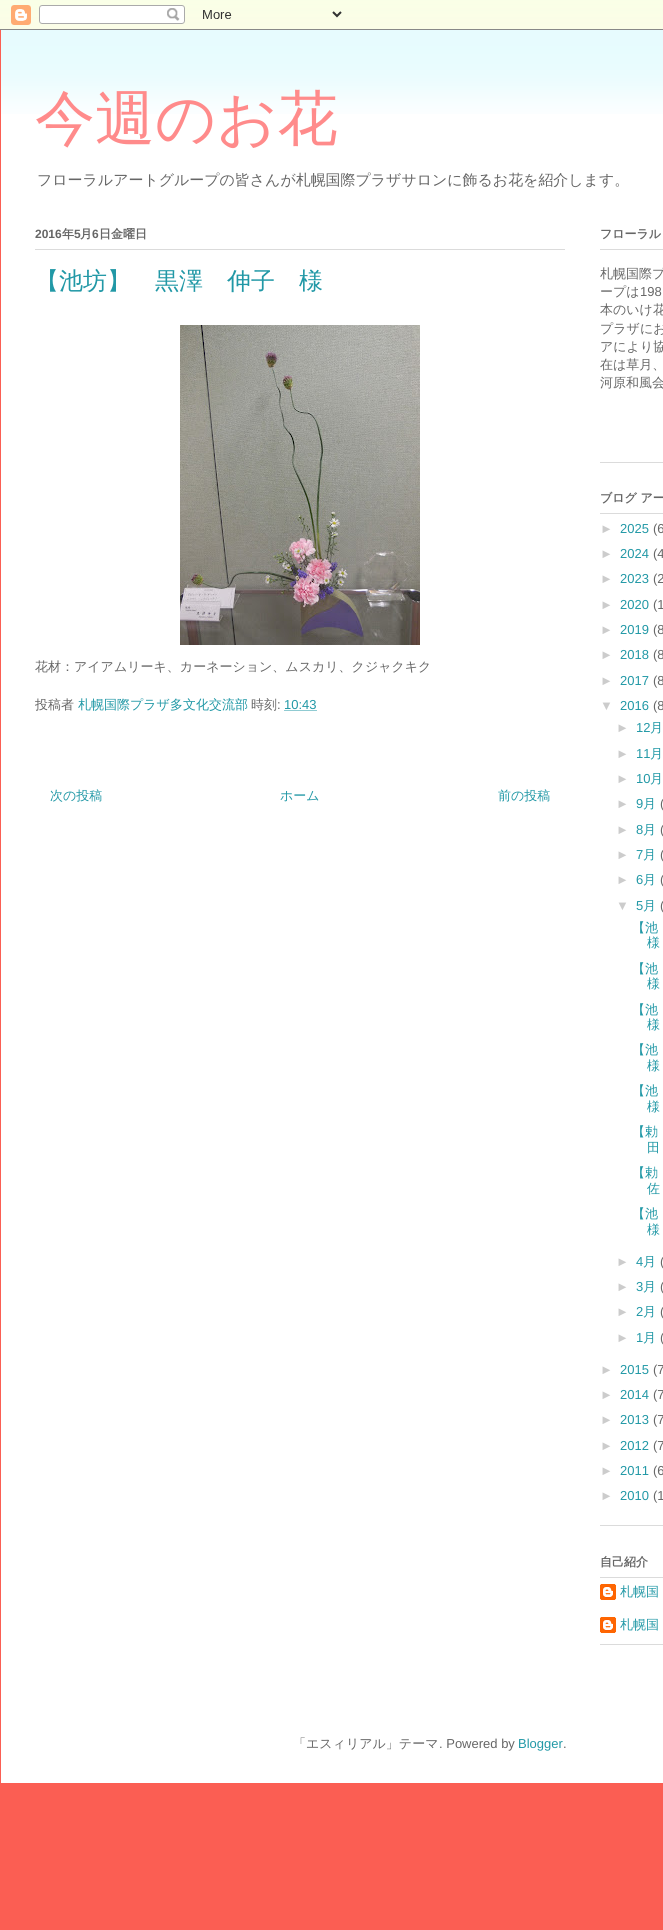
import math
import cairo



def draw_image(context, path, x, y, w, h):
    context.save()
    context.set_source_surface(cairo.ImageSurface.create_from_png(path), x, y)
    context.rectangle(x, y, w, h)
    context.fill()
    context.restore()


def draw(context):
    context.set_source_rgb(251 / 255, 94 / 255, 83 / 255)
    context.paint()
    draw_image(context, "images/1.png", 0, 0, 663, 29)
    draw_image(context, "images/2.png", 0, 0, 663, 30)
    context.set_source_rgb(1, 1, 1)
    context.rectangle(1, 30, 662, 1753)
    context.fill()
    draw_image(context, "images/3.png", 1, 30, 662, 84)
    context.set_source_rgb(219 / 255, 219 / 255, 219 / 255)
    context.rectangle(35, 249, 530, 1)
    context.fill()
    draw_image(context, "images/4.png", 180, 325, 240, 320)
    context.new_path()
    context.move_to(284.5, 710.5)
    context.line_to(317, 710.5)
    context.set_source_rgb(33 / 255, 152 / 255, 166 / 255)
    context.set_line_width(1)
    context.set_dash([1, 1])
    context.stroke()
    context.set_source_rgb(219 / 255, 219 / 255, 219 / 255)
    context.rectangle(600, 462, 63, 1)
    context.fill()
    context.rectangle(600, 249, 63, 1)
    context.fill()
    context.rectangle(600, 1525, 63, 1)
    context.fill()
    context.rectangle(600, 513, 63, 1)
    context.fill()
    context.rectangle(600, 1644, 63, 1)
    context.fill()
    context.rectangle(600, 1577, 63, 1)
    context.fill()
    draw_image(context, "images/5.png", 600, 1584, 16, 16)
    draw_image(context, "images/5.png", 600, 1617, 16, 16)
    context.select_font_face("WenQuanYi Zen Hei Medium")
    context.set_font_size(60)
    context.set_source_rgb(1, 139 / 255, 139 / 255)
    context.move_to(35, 139)
    context.show_text("今週のお花")
    context.set_font_size(14.95)
    context.set_source_rgb(102 / 255, 102 / 255, 102 / 255)
    context.move_to(37, 185)
    context.show_text("フローラルアートグループの皆さんが札幌国際プラザサロンに飾るお花を紹介します。")
    context.select_font_face("Liberation Sans", cairo.FontSlant.NORMAL, cairo.FontWeight.BOLD)
    context.set_font_size(12)
    context.move_to(35, 238)
    context.show_text("2016")
    context.select_font_face("WenQuanYi Zen Hei", cairo.FontSlant.NORMAL, cairo.FontWeight.BOLD)
    context.move_to(62, 238)
    context.show_text("年")
    context.select_font_face("Liberation Sans", cairo.FontSlant.NORMAL, cairo.FontWeight.BOLD)
    context.move_to(74, 238)
    context.show_text("5")
    context.select_font_face("WenQuanYi Zen Hei", cairo.FontSlant.NORMAL, cairo.FontWeight.BOLD)
    context.move_to(80, 238)
    context.show_text("月")
    context.select_font_face("Liberation Sans", cairo.FontSlant.NORMAL, cairo.FontWeight.BOLD)
    context.move_to(92, 238)
    context.show_text("6")
    context.select_font_face("WenQuanYi Zen Hei", cairo.FontSlant.NORMAL, cairo.FontWeight.BOLD)
    context.move_to(99, 238)
    context.show_text("日金曜日")
    context.select_font_face("WenQuanYi Zen Hei Medium")
    context.set_font_size(24)
    context.set_source_rgb(33 / 255, 152 / 255, 166 / 255)
    context.move_to(35, 289)
    context.show_text("【池坊】　黒澤　伸子　様")
    context.set_font_size(13)
    context.set_source_rgb(102 / 255, 102 / 255, 102 / 255)
    context.move_to(35, 671)
    context.show_text("花材：アイアムリーキ、カーネーション、ムスカリ、クジャクキク")
    context.move_to(35, 709)
    context.show_text("投稿者")
    context.set_source_rgb(33 / 255, 152 / 255, 166 / 255)
    context.move_to(78, 709)
    context.show_text("札幌国際プラザ多文化交流部")
    context.set_source_rgb(102 / 255, 102 / 255, 102 / 255)
    context.move_to(251, 709)
    context.show_text("時刻")
    context.select_font_face("Liberation Sans")
    context.move_to(277, 709)
    context.show_text(":")
    context.set_source_rgb(33 / 255, 152 / 255, 166 / 255)
    context.move_to(284, 709)
    context.show_text("10:43")
    context.select_font_face("WenQuanYi Zen Hei Medium")
    context.move_to(50, 800)
    context.show_text("次の投稿")
    context.move_to(280, 800)
    context.show_text("ホーム")
    context.move_to(498, 800)
    context.show_text("前の投稿")
    context.select_font_face("WenQuanYi Zen Hei", cairo.FontSlant.NORMAL, cairo.FontWeight.BOLD)
    context.set_font_size(12)
    context.set_source_rgb(102 / 255, 102 / 255, 102 / 255)
    context.move_to(600, 238)
    context.show_text("フローラル")
    context.select_font_face("WenQuanYi Zen Hei Medium")
    context.set_font_size(13)
    context.move_to(600, 278)
    context.show_text("札幌国際プ")
    context.move_to(600, 296)
    context.show_text("ープは")
    context.select_font_face("Liberation Sans")
    context.move_to(640, 296)
    context.show_text("198")
    context.select_font_face("WenQuanYi Zen Hei Medium")
    context.move_to(600, 314)
    context.show_text("本のいけ花")
    context.move_to(600, 333)
    context.show_text("プラザにお")
    context.move_to(600, 351)
    context.show_text("アにより協")
    context.move_to(600, 369)
    context.show_text("在は草月、")
    context.move_to(600, 387)
    context.show_text("河原和風会")
    context.select_font_face("WenQuanYi Zen Hei", cairo.FontSlant.NORMAL, cairo.FontWeight.BOLD)
    context.set_font_size(12)
    context.move_to(600, 502)
    context.show_text("ブログ アー")
    context.select_font_face("Liberation Sans")
    context.set_font_size(13)
    context.set_source_rgb(204 / 255, 204 / 255, 204 / 255)
    context.move_to(600, 533)
    context.show_text("►")
    context.set_source_rgb(33 / 255, 152 / 255, 166 / 255)
    context.move_to(620, 533)
    context.show_text("2025")
    context.set_source_rgb(102 / 255, 102 / 255, 102 / 255)
    context.move_to(653, 533)
    context.show_text("(6")
    context.set_source_rgb(204 / 255, 204 / 255, 204 / 255)
    context.move_to(600, 558)
    context.show_text("►")
    context.set_source_rgb(33 / 255, 152 / 255, 166 / 255)
    context.move_to(620, 558)
    context.show_text("2024")
    context.set_source_rgb(102 / 255, 102 / 255, 102 / 255)
    context.move_to(653, 558)
    context.show_text("(4")
    context.set_source_rgb(204 / 255, 204 / 255, 204 / 255)
    context.move_to(600, 583)
    context.show_text("►")
    context.set_source_rgb(33 / 255, 152 / 255, 166 / 255)
    context.move_to(620, 583)
    context.show_text("2023")
    context.set_source_rgb(102 / 255, 102 / 255, 102 / 255)
    context.move_to(653, 583)
    context.show_text("(2")
    context.set_source_rgb(204 / 255, 204 / 255, 204 / 255)
    context.move_to(600, 609)
    context.show_text("►")
    context.set_source_rgb(33 / 255, 152 / 255, 166 / 255)
    context.move_to(620, 609)
    context.show_text("2020")
    context.set_source_rgb(102 / 255, 102 / 255, 102 / 255)
    context.move_to(653, 609)
    context.show_text("(1")
    context.set_source_rgb(204 / 255, 204 / 255, 204 / 255)
    context.move_to(600, 634)
    context.show_text("►")
    context.set_source_rgb(33 / 255, 152 / 255, 166 / 255)
    context.move_to(620, 634)
    context.show_text("2019")
    context.set_source_rgb(102 / 255, 102 / 255, 102 / 255)
    context.move_to(653, 634)
    context.show_text("(8")
    context.set_source_rgb(204 / 255, 204 / 255, 204 / 255)
    context.move_to(600, 659)
    context.show_text("►")
    context.set_source_rgb(33 / 255, 152 / 255, 166 / 255)
    context.move_to(620, 659)
    context.show_text("2018")
    context.set_source_rgb(102 / 255, 102 / 255, 102 / 255)
    context.move_to(653, 659)
    context.show_text("(8")
    context.set_source_rgb(204 / 255, 204 / 255, 204 / 255)
    context.move_to(600, 685)
    context.show_text("►")
    context.set_source_rgb(33 / 255, 152 / 255, 166 / 255)
    context.move_to(620, 685)
    context.show_text("2017")
    context.set_source_rgb(102 / 255, 102 / 255, 102 / 255)
    context.move_to(653, 685)
    context.show_text("(8")
    context.set_source_rgb(204 / 255, 204 / 255, 204 / 255)
    context.move_to(600, 710)
    context.show_text("▼")
    context.set_source_rgb(33 / 255, 152 / 255, 166 / 255)
    context.move_to(620, 710)
    context.show_text("2016")
    context.set_source_rgb(102 / 255, 102 / 255, 102 / 255)
    context.move_to(653, 710)
    context.show_text("(8")
    context.set_source_rgb(204 / 255, 204 / 255, 204 / 255)
    context.move_to(616, 732)
    context.show_text("►")
    context.set_source_rgb(33 / 255, 152 / 255, 166 / 255)
    context.move_to(636, 732)
    context.show_text("12")
    context.select_font_face("WenQuanYi Zen Hei Medium")
    context.move_to(650, 732)
    context.show_text("月")
    context.select_font_face("Liberation Sans")
    context.set_source_rgb(204 / 255, 204 / 255, 204 / 255)
    context.move_to(616, 758)
    context.show_text("►")
    context.set_source_rgb(33 / 255, 152 / 255, 166 / 255)
    context.move_to(636, 758)
    context.show_text("11")
    context.select_font_face("WenQuanYi Zen Hei Medium")
    context.move_to(650, 758)
    context.show_text("月")
    context.select_font_face("Liberation Sans")
    context.set_source_rgb(204 / 255, 204 / 255, 204 / 255)
    context.move_to(616, 783)
    context.show_text("►")
    context.set_source_rgb(33 / 255, 152 / 255, 166 / 255)
    context.move_to(636, 783)
    context.show_text("10")
    context.select_font_face("WenQuanYi Zen Hei Medium")
    context.move_to(650, 783)
    context.show_text("月")
    context.select_font_face("Liberation Sans")
    context.set_source_rgb(204 / 255, 204 / 255, 204 / 255)
    context.move_to(616, 808)
    context.show_text("►")
    context.set_source_rgb(33 / 255, 152 / 255, 166 / 255)
    context.move_to(636, 808)
    context.show_text("9")
    context.select_font_face("WenQuanYi Zen Hei Medium")
    context.move_to(643, 808)
    context.show_text("月")
    context.select_font_face("Liberation Sans")
    context.set_source_rgb(102 / 255, 102 / 255, 102 / 255)
    context.move_to(660, 808)
    context.show_text("(")
    context.set_source_rgb(204 / 255, 204 / 255, 204 / 255)
    context.move_to(616, 834)
    context.show_text("►")
    context.set_source_rgb(33 / 255, 152 / 255, 166 / 255)
    context.move_to(636, 834)
    context.show_text("8")
    context.select_font_face("WenQuanYi Zen Hei Medium")
    context.move_to(643, 834)
    context.show_text("月")
    context.select_font_face("Liberation Sans")
    context.set_source_rgb(102 / 255, 102 / 255, 102 / 255)
    context.move_to(660, 834)
    context.show_text("(")
    context.set_source_rgb(204 / 255, 204 / 255, 204 / 255)
    context.move_to(616, 859)
    context.show_text("►")
    context.set_source_rgb(33 / 255, 152 / 255, 166 / 255)
    context.move_to(636, 859)
    context.show_text("7")
    context.select_font_face("WenQuanYi Zen Hei Medium")
    context.move_to(643, 859)
    context.show_text("月")
    context.select_font_face("Liberation Sans")
    context.set_source_rgb(102 / 255, 102 / 255, 102 / 255)
    context.move_to(660, 859)
    context.show_text("(")
    context.set_source_rgb(204 / 255, 204 / 255, 204 / 255)
    context.move_to(616, 884)
    context.show_text("►")
    context.set_source_rgb(33 / 255, 152 / 255, 166 / 255)
    context.move_to(636, 884)
    context.show_text("6")
    context.select_font_face("WenQuanYi Zen Hei Medium")
    context.move_to(643, 884)
    context.show_text("月")
    context.select_font_face("Liberation Sans")
    context.set_source_rgb(102 / 255, 102 / 255, 102 / 255)
    context.move_to(660, 884)
    context.show_text("(")
    context.set_source_rgb(204 / 255, 204 / 255, 204 / 255)
    context.move_to(616, 910)
    context.show_text("▼")
    context.set_source_rgb(33 / 255, 152 / 255, 166 / 255)
    context.move_to(636, 910)
    context.show_text("5")
    context.select_font_face("WenQuanYi Zen Hei Medium")
    context.move_to(643, 910)
    context.show_text("月")
    context.select_font_face("Liberation Sans")
    context.set_source_rgb(102 / 255, 102 / 255, 102 / 255)
    context.move_to(660, 910)
    context.show_text("(")
    context.select_font_face("WenQuanYi Zen Hei Medium")
    context.set_source_rgb(33 / 255, 152 / 255, 166 / 255)
    context.move_to(632, 932)
    context.show_text("【池")
    context.move_to(647, 947)
    context.show_text("様")
    context.move_to(632, 973)
    context.show_text("【池")
    context.move_to(647, 988)
    context.show_text("様")
    context.move_to(632, 1014)
    context.show_text("【池")
    context.move_to(647, 1029)
    context.show_text("様")
    context.move_to(632, 1054)
    context.show_text("【池")
    context.move_to(647, 1070)
    context.show_text("様")
    context.move_to(632, 1095)
    context.show_text("【池")
    context.move_to(647, 1111)
    context.show_text("様")
    context.move_to(632, 1136)
    context.show_text("【勅")
    context.move_to(647, 1152)
    context.show_text("田")
    context.move_to(632, 1177)
    context.show_text("【勅")
    context.move_to(647, 1193)
    context.show_text("佐")
    context.move_to(632, 1218)
    context.show_text("【池")
    context.move_to(647, 1234)
    context.show_text("様")
    context.select_font_face("Liberation Sans")
    context.set_source_rgb(204 / 255, 204 / 255, 204 / 255)
    context.move_to(616, 1266)
    context.show_text("►")
    context.set_source_rgb(33 / 255, 152 / 255, 166 / 255)
    context.move_to(636, 1266)
    context.show_text("4")
    context.select_font_face("WenQuanYi Zen Hei Medium")
    context.move_to(643, 1266)
    context.show_text("月")
    context.select_font_face("Liberation Sans")
    context.set_source_rgb(102 / 255, 102 / 255, 102 / 255)
    context.move_to(660, 1266)
    context.show_text("(")
    context.set_source_rgb(204 / 255, 204 / 255, 204 / 255)
    context.move_to(616, 1291)
    context.show_text("►")
    context.set_source_rgb(33 / 255, 152 / 255, 166 / 255)
    context.move_to(636, 1291)
    context.show_text("3")
    context.select_font_face("WenQuanYi Zen Hei Medium")
    context.move_to(643, 1291)
    context.show_text("月")
    context.select_font_face("Liberation Sans")
    context.set_source_rgb(102 / 255, 102 / 255, 102 / 255)
    context.move_to(660, 1291)
    context.show_text("(")
    context.set_source_rgb(204 / 255, 204 / 255, 204 / 255)
    context.move_to(616, 1316)
    context.show_text("►")
    context.set_source_rgb(33 / 255, 152 / 255, 166 / 255)
    context.move_to(636, 1316)
    context.show_text("2")
    context.select_font_face("WenQuanYi Zen Hei Medium")
    context.move_to(643, 1316)
    context.show_text("月")
    context.select_font_face("Liberation Sans")
    context.set_source_rgb(102 / 255, 102 / 255, 102 / 255)
    context.move_to(660, 1316)
    context.show_text("(")
    context.set_source_rgb(204 / 255, 204 / 255, 204 / 255)
    context.move_to(616, 1342)
    context.show_text("►")
    context.set_source_rgb(33 / 255, 152 / 255, 166 / 255)
    context.move_to(636, 1342)
    context.show_text("1")
    context.select_font_face("WenQuanYi Zen Hei Medium")
    context.move_to(643, 1342)
    context.show_text("月")
    context.select_font_face("Liberation Sans")
    context.set_source_rgb(102 / 255, 102 / 255, 102 / 255)
    context.move_to(660, 1342)
    context.show_text("(")
    context.set_source_rgb(204 / 255, 204 / 255, 204 / 255)
    context.move_to(600, 1374)
    context.show_text("►")
    context.set_source_rgb(33 / 255, 152 / 255, 166 / 255)
    context.move_to(620, 1374)
    context.show_text("2015")
    context.set_source_rgb(102 / 255, 102 / 255, 102 / 255)
    context.move_to(653, 1374)
    context.show_text("(7")
    context.set_source_rgb(204 / 255, 204 / 255, 204 / 255)
    context.move_to(600, 1399)
    context.show_text("►")
    context.set_source_rgb(33 / 255, 152 / 255, 166 / 255)
    context.move_to(620, 1399)
    context.show_text("2014")
    context.set_source_rgb(102 / 255, 102 / 255, 102 / 255)
    context.move_to(653, 1399)
    context.show_text("(7")
    context.set_source_rgb(204 / 255, 204 / 255, 204 / 255)
    context.move_to(600, 1424)
    context.show_text("►")
    context.set_source_rgb(33 / 255, 152 / 255, 166 / 255)
    context.move_to(620, 1424)
    context.show_text("2013")
    context.set_source_rgb(102 / 255, 102 / 255, 102 / 255)
    context.move_to(653, 1424)
    context.show_text("(7")
    context.set_source_rgb(204 / 255, 204 / 255, 204 / 255)
    context.move_to(600, 1450)
    context.show_text("►")
    context.set_source_rgb(33 / 255, 152 / 255, 166 / 255)
    context.move_to(620, 1450)
    context.show_text("2012")
    context.set_source_rgb(102 / 255, 102 / 255, 102 / 255)
    context.move_to(653, 1450)
    context.show_text("(7")
    context.set_source_rgb(204 / 255, 204 / 255, 204 / 255)
    context.move_to(600, 1475)
    context.show_text("►")
    context.set_source_rgb(33 / 255, 152 / 255, 166 / 255)
    context.move_to(620, 1475)
    context.show_text("2011")
    context.set_source_rgb(102 / 255, 102 / 255, 102 / 255)
    context.move_to(653, 1475)
    context.show_text("(6")
    context.set_source_rgb(204 / 255, 204 / 255, 204 / 255)
    context.move_to(600, 1500)
    context.show_text("►")
    context.set_source_rgb(33 / 255, 152 / 255, 166 / 255)
    context.move_to(620, 1500)
    context.show_text("2010")
    context.set_source_rgb(102 / 255, 102 / 255, 102 / 255)
    context.move_to(653, 1500)
    context.show_text("(1")
    context.select_font_face("WenQuanYi Zen Hei", cairo.FontSlant.NORMAL, cairo.FontWeight.BOLD)
    context.set_font_size(12)
    context.move_to(600, 1566)
    context.show_text("自己紹介")
    context.select_font_face("WenQuanYi Zen Hei Medium")
    context.set_font_size(13)
    context.set_source_rgb(33 / 255, 152 / 255, 166 / 255)
    context.move_to(620, 1596)
    context.show_text("札幌国")
    context.move_to(620, 1629)
    context.show_text("札幌国")
    context.set_source_rgb(102 / 255, 102 / 255, 102 / 255)
    context.move_to(293, 1748)
    context.show_text("「エスィリアル」テーマ")
    context.select_font_face("Liberation Sans")
    context.move_to(439, 1748)
    context.show_text(". Powered by")
    context.set_source_rgb(33 / 255, 152 / 255, 166 / 255)
    context.move_to(518, 1748)
    context.show_text("Blogger")
    context.set_source_rgb(102 / 255, 102 / 255, 102 / 255)
    context.move_to(563, 1748)
    context.show_text(".")


surface = cairo.ImageSurface(cairo.Format.RGB24, 663, 1930)
context = cairo.Context(surface)
options = cairo.FontOptions()
options.set_hint_metrics(cairo.HintMetrics.OFF)
options.set_hint_style(cairo.HintStyle.NONE)
context.set_font_options(options)
context.set_miter_limit(4)
draw(context)
surface.write_to_png("out.png")
